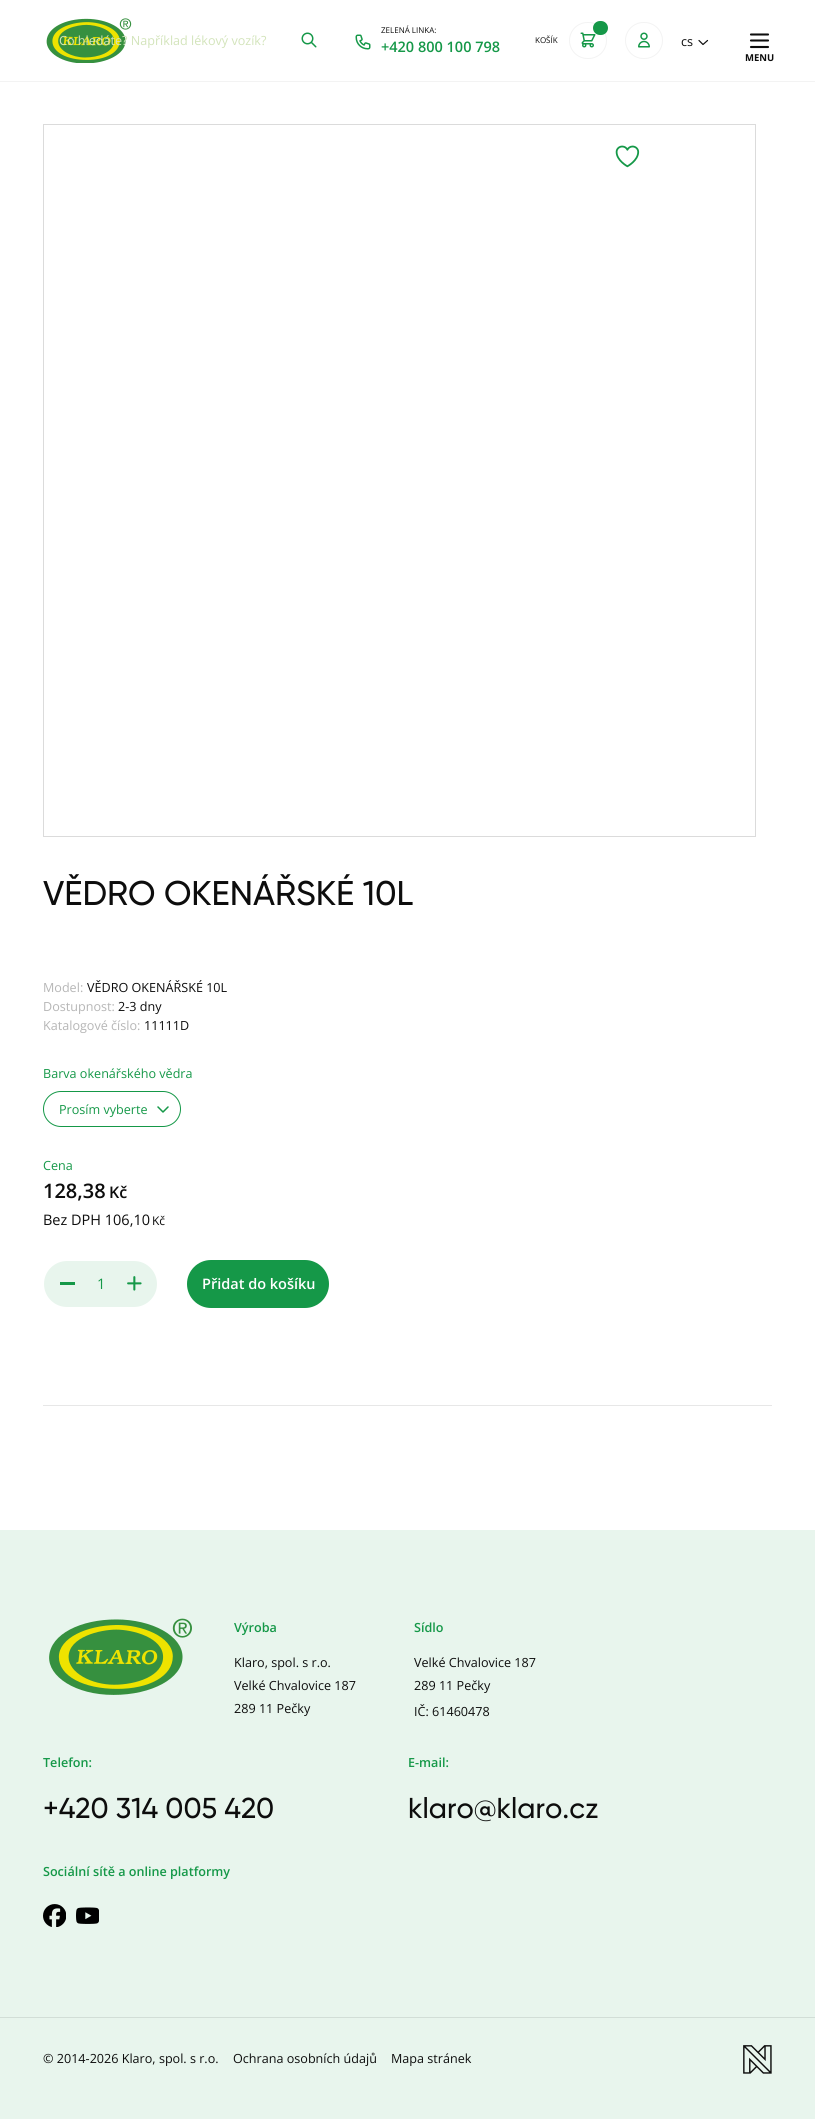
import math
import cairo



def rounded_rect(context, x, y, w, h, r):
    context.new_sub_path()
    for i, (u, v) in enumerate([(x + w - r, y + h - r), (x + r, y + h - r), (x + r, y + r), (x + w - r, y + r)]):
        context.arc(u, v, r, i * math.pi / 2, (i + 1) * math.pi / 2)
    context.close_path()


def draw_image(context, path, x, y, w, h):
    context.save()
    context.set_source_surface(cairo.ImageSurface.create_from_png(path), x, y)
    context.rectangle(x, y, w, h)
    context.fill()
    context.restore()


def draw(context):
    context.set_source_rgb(1, 1, 1)
    context.paint()
    context.set_source_rgb(243 / 255, 243 / 255, 243 / 255)
    context.rectangle(0, 81, 815, 1)
    context.fill()
    draw_image(context, "images/1.png", 46, 18, 86, 45)
    draw_image(context, "images/2.png", 301, 32, 16, 16)
    draw_image(context, "images/3.png", 355, 34, 16, 16)
    rounded_rect(context, 569.5, 22.5, 37, 36, 18)
    context.set_line_width(1)
    context.stroke()
    draw_image(context, "images/4.png", 580, 32, 16, 16)
    context.set_source_rgb(21 / 255, 152 / 255, 72 / 255)
    rounded_rect(context, 593, 21, 15, 14, 7)
    context.fill()
    rounded_rect(context, 625.5, 22.5, 37, 36, 18)
    context.set_source_rgb(243 / 255, 243 / 255, 243 / 255)
    context.stroke()
    draw_image(context, "images/5.png", 638, 32, 12, 16)
    context.new_path()
    context.move_to(707.5, 40.5)
    context.line_to(703, 44.5)
    context.line_to(699, 40.5)
    context.set_source_rgb(13 / 255, 13 / 255, 13 / 255)
    context.set_line_width(1.2)
    context.set_line_cap(cairo.LineCap.ROUND)
    context.set_line_join(cairo.LineJoin.ROUND)
    context.stroke()
    context.new_path()
    context.move_to(751, 34.5)
    context.line_to(768, 34.5)
    context.move_to(751, 40.5)
    context.line_to(768, 40.5)
    context.move_to(751, 47)
    context.line_to(768, 47)
    context.set_line_width(2.1)
    context.stroke()
    context.rectangle(43.5, 124.5, 712, 712)
    context.set_source_rgb(219 / 255, 219 / 255, 219 / 255)
    context.set_line_width(1)
    context.set_line_cap(cairo.LineCap.BUTT)
    context.set_line_join(cairo.LineJoin.MITER)
    context.stroke()
    draw_image(context, "images/6.png", 615, 145, 25, 23)
    rounded_rect(context, 43.5, 1091.5, 137, 35, 17.5)
    context.set_source_rgb(21 / 255, 152 / 255, 72 / 255)
    context.stroke()
    context.new_path()
    context.move_to(168, 1107)
    context.line_to(163, 1112)
    context.line_to(158, 1107)
    context.set_line_width(1.5)
    context.set_line_cap(cairo.LineCap.ROUND)
    context.set_line_join(cairo.LineJoin.ROUND)
    context.stroke()
    context.set_source_rgb(232 / 255, 245 / 255, 237 / 255)
    rounded_rect(context, 44, 1261, 113, 46, 23)
    context.fill()
    context.set_source_rgb(21 / 255, 152 / 255, 72 / 255)
    context.rectangle(60, 1282, 15, 3)
    context.fill()
    draw_image(context, "images/7.png", 127, 1276, 15, 15)
    rounded_rect(context, 187, 1260, 142, 48, 24)
    context.fill()
    context.set_source_rgb(231 / 255, 231 / 255, 231 / 255)
    context.rectangle(43, 1405, 729, 1)
    context.fill()
    context.set_source_rgb(232 / 255, 245 / 255, 237 / 255)
    context.rectangle(0, 1530, 815, 589)
    context.fill()
    draw_image(context, "images/8.png", 49, 1618, 143, 77)
    draw_image(context, "images/9.png", 43, 1904, 23, 23)
    draw_image(context, "images/10.png", 76, 1907, 23, 17)
    context.set_source_rgb(210 / 255, 222 / 255, 215 / 255)
    context.rectangle(0, 2017, 815, 1)
    context.fill()
    draw_image(context, "images/11.png", 743, 2045, 29, 29)
    context.select_font_face("Open Sans")
    context.set_font_size(8)
    context.set_source_rgb(13 / 255, 13 / 255, 13 / 255)
    context.move_to(381, 33)
    context.show_text("ZELENÁ LINKA:")
    context.select_font_face("Open Sans SemiBold")
    context.set_font_size(14.5)
    context.set_source_rgb(21 / 255, 152 / 255, 72 / 255)
    context.move_to(381, 52)
    context.show_text("+420 800 100 798")
    context.select_font_face("Open Sans")
    context.set_font_size(8)
    context.set_source_rgb(13 / 255, 13 / 255, 13 / 255)
    context.move_to(535, 43)
    context.show_text("KOŠÍK")
    context.set_font_size(12.6)
    context.move_to(681, 46)
    context.show_text("cs")
    context.select_font_face("Open Sans", cairo.FontSlant.NORMAL, cairo.FontWeight.BOLD)
    context.set_font_size(9.5)
    context.move_to(745, 61)
    context.show_text("MENU")
    context.select_font_face("Open Sans")
    context.set_font_size(12.6)
    context.set_source_rgb(211 / 255, 228 / 255, 187 / 255)
    context.move_to(59, 45)
    context.show_text("Co hledáte? Například lékový vozík?")
    context.select_font_face("Gilroy Medium")
    context.set_font_size(34.25)
    context.set_source_rgb(13 / 255, 13 / 255, 13 / 255)
    context.move_to(43, 905)
    context.show_text("VĚDRO OKENÁŘSKÉ 10L")
    context.select_font_face("Open Sans")
    context.set_font_size(12.6)
    context.set_source_rgb(182 / 255, 182 / 255, 182 / 255)
    context.move_to(43, 992)
    context.show_text("Model:")
    context.set_source_rgb(13 / 255, 13 / 255, 13 / 255)
    context.move_to(87, 992)
    context.show_text("VĚDRO OKENÁŘSKÉ 10L")
    context.set_source_rgb(182 / 255, 182 / 255, 182 / 255)
    context.move_to(43, 1011)
    context.show_text("Dostupnost:")
    context.set_source_rgb(13 / 255, 13 / 255, 13 / 255)
    context.move_to(118, 1011)
    context.show_text("2-3 dny")
    context.set_source_rgb(182 / 255, 182 / 255, 182 / 255)
    context.move_to(43, 1030)
    context.show_text("Katalogové číslo:")
    context.set_source_rgb(13 / 255, 13 / 255, 13 / 255)
    context.move_to(144, 1030)
    context.show_text("11111D")
    context.set_source_rgb(21 / 255, 152 / 255, 72 / 255)
    context.move_to(43, 1078)
    context.show_text("Barva okenářského vědra")
    context.move_to(59, 1114)
    context.show_text("Prosím vyberte")
    context.move_to(43, 1170)
    context.show_text("Cena")
    context.select_font_face("Open Sans SemiBold")
    context.set_font_size(20)
    context.set_source_rgb(13 / 255, 13 / 255, 13 / 255)
    context.move_to(43, 1198)
    context.show_text("128,38")
    context.set_font_size(16)
    context.move_to(109, 1198)
    context.show_text("Kč")
    context.select_font_face("Open Sans")
    context.set_font_size(14.5)
    context.move_to(43, 1225)
    context.show_text("Bez DPH 106,10")
    context.set_font_size(12)
    context.move_to(152, 1225)
    context.show_text("Kč")
    context.set_font_size(14.5)
    context.set_source_rgb(21 / 255, 152 / 255, 72 / 255)
    context.move_to(97, 1289)
    context.show_text("1")
    context.select_font_face("Open Sans SemiBold")
    context.set_source_rgb(1, 1, 1)
    context.move_to(202, 1289)
    context.show_text("Přidat do košíku")
    context.set_font_size(12.6)
    context.set_source_rgb(21 / 255, 152 / 255, 72 / 255)
    context.move_to(234, 1632)
    context.show_text("Výroba")
    context.select_font_face("Open Sans")
    context.set_source_rgb(13 / 255, 13 / 255, 13 / 255)
    context.move_to(234, 1667)
    context.show_text("Klaro, spol. s r.o.")
    context.move_to(234, 1690)
    context.show_text("Velké Chvalovice 187")
    context.move_to(234, 1713)
    context.show_text("289 11 Pečky")
    context.select_font_face("Open Sans SemiBold")
    context.set_source_rgb(21 / 255, 152 / 255, 72 / 255)
    context.move_to(414, 1632)
    context.show_text("Sídlo")
    context.select_font_face("Open Sans")
    context.set_source_rgb(13 / 255, 13 / 255, 13 / 255)
    context.move_to(414, 1667)
    context.show_text("Velké Chvalovice 187")
    context.move_to(414, 1690)
    context.show_text("289 11 Pečky")
    context.move_to(414, 1716)
    context.show_text("IČ: 61460478")
    context.select_font_face("Open Sans SemiBold")
    context.set_source_rgb(21 / 255, 152 / 255, 72 / 255)
    context.move_to(43, 1767)
    context.show_text("Telefon:")
    context.select_font_face("Gilroy Medium")
    context.set_font_size(28.75)
    context.set_source_rgb(13 / 255, 13 / 255, 13 / 255)
    context.move_to(43, 1818)
    context.show_text("+420 314 005 420")
    context.select_font_face("Open Sans SemiBold")
    context.set_font_size(12.6)
    context.set_source_rgb(21 / 255, 152 / 255, 72 / 255)
    context.move_to(408, 1767)
    context.show_text("E-mail:")
    context.select_font_face("Gilroy Medium")
    context.set_font_size(28.75)
    context.set_source_rgb(13 / 255, 13 / 255, 13 / 255)
    context.move_to(408, 1818)
    context.show_text("klaro@klaro.cz")
    context.select_font_face("Open Sans SemiBold")
    context.set_font_size(12.6)
    context.set_source_rgb(21 / 255, 152 / 255, 72 / 255)
    context.move_to(43, 1876)
    context.show_text("Sociální sítě a online platformy")
    context.select_font_face("Open Sans")
    context.set_source_rgb(13 / 255, 13 / 255, 13 / 255)
    context.move_to(43, 2063)
    context.show_text("© 2014-2026 Klaro, spol. s r.o.")
    context.move_to(233, 2063)
    context.show_text("Ochrana osobních údajů")
    context.move_to(391, 2063)
    context.show_text("Mapa stránek")


surface = cairo.ImageSurface(cairo.Format.RGB24, 815, 2119)
context = cairo.Context(surface)
options = cairo.FontOptions()
options.set_hint_metrics(cairo.HintMetrics.OFF)
options.set_hint_style(cairo.HintStyle.NONE)
context.set_font_options(options)
context.set_miter_limit(4)
draw(context)
surface.write_to_png("out.png")
